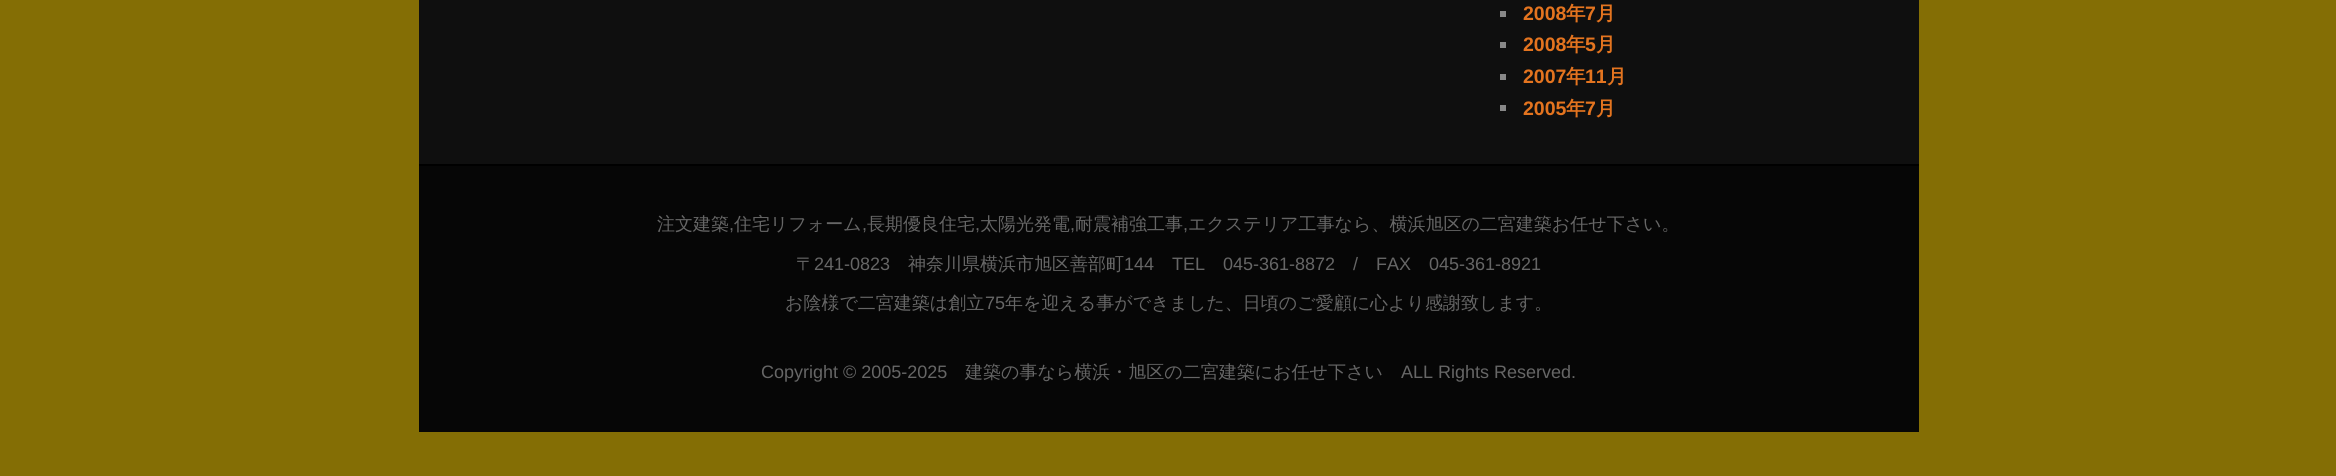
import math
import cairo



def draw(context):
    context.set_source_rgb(132 / 255, 110 / 255, 5 / 255)
    context.paint()
    context.set_source_rgb(15 / 255, 15 / 255, 15 / 255)
    context.rectangle(419, 0, 1500, 164)
    context.fill()
    context.set_source_rgb(136 / 255, 136 / 255, 136 / 255)
    context.rectangle(1500, 11, 6, 6)
    context.fill()
    context.rectangle(1500, 42, 6, 6)
    context.fill()
    context.rectangle(1500, 74, 6, 6)
    context.fill()
    context.rectangle(1500, 105, 6, 6)
    context.fill()
    context.set_source_rgb(6 / 255, 6 / 255, 6 / 255)
    context.rectangle(419, 166, 1500, 266)
    context.fill()
    context.set_source_rgb(0, 0, 0)
    context.rectangle(419, 164, 1500, 2)
    context.fill()
    context.select_font_face("Liberation Sans", cairo.FontSlant.NORMAL, cairo.FontWeight.BOLD)
    context.set_font_size(19.5)
    context.set_source_rgb(228 / 255, 116 / 255, 31 / 255)
    context.move_to(1523, 20)
    context.show_text("2008")
    context.select_font_face("WenQuanYi Zen Hei", cairo.FontSlant.NORMAL, cairo.FontWeight.BOLD)
    context.move_to(1566, 20)
    context.show_text("年")
    context.select_font_face("Liberation Sans", cairo.FontSlant.NORMAL, cairo.FontWeight.BOLD)
    context.move_to(1585, 20)
    context.show_text("7")
    context.select_font_face("WenQuanYi Zen Hei", cairo.FontSlant.NORMAL, cairo.FontWeight.BOLD)
    context.move_to(1596, 20)
    context.show_text("月")
    context.select_font_face("Liberation Sans", cairo.FontSlant.NORMAL, cairo.FontWeight.BOLD)
    context.move_to(1523, 51)
    context.show_text("2008")
    context.select_font_face("WenQuanYi Zen Hei", cairo.FontSlant.NORMAL, cairo.FontWeight.BOLD)
    context.move_to(1566, 51)
    context.show_text("年")
    context.select_font_face("Liberation Sans", cairo.FontSlant.NORMAL, cairo.FontWeight.BOLD)
    context.move_to(1585, 51)
    context.show_text("5")
    context.select_font_face("WenQuanYi Zen Hei", cairo.FontSlant.NORMAL, cairo.FontWeight.BOLD)
    context.move_to(1596, 51)
    context.show_text("月")
    context.select_font_face("Liberation Sans", cairo.FontSlant.NORMAL, cairo.FontWeight.BOLD)
    context.move_to(1523, 83)
    context.show_text("2007")
    context.select_font_face("WenQuanYi Zen Hei", cairo.FontSlant.NORMAL, cairo.FontWeight.BOLD)
    context.move_to(1566, 83)
    context.show_text("年")
    context.select_font_face("Liberation Sans", cairo.FontSlant.NORMAL, cairo.FontWeight.BOLD)
    context.move_to(1585, 83)
    context.show_text("11")
    context.select_font_face("WenQuanYi Zen Hei", cairo.FontSlant.NORMAL, cairo.FontWeight.BOLD)
    context.move_to(1607, 83)
    context.show_text("月")
    context.select_font_face("Liberation Sans", cairo.FontSlant.NORMAL, cairo.FontWeight.BOLD)
    context.move_to(1523, 115)
    context.show_text("2005")
    context.select_font_face("WenQuanYi Zen Hei", cairo.FontSlant.NORMAL, cairo.FontWeight.BOLD)
    context.move_to(1566, 115)
    context.show_text("年")
    context.select_font_face("Liberation Sans", cairo.FontSlant.NORMAL, cairo.FontWeight.BOLD)
    context.move_to(1585, 115)
    context.show_text("7")
    context.select_font_face("WenQuanYi Zen Hei", cairo.FontSlant.NORMAL, cairo.FontWeight.BOLD)
    context.move_to(1596, 115)
    context.show_text("月")
    context.select_font_face("WenQuanYi Zen Hei Medium")
    context.set_font_size(18)
    context.set_source_rgb(102 / 255, 102 / 255, 102 / 255)
    context.move_to(657, 230)
    context.show_text("注文建築")
    context.select_font_face("Liberation Sans")
    context.move_to(729, 230)
    context.show_text(",")
    context.select_font_face("WenQuanYi Zen Hei Medium")
    context.move_to(734, 230)
    context.show_text("住宅リフォーム")
    context.select_font_face("Liberation Sans")
    context.move_to(862, 230)
    context.show_text(",")
    context.select_font_face("WenQuanYi Zen Hei Medium")
    context.move_to(867, 230)
    context.show_text("長期優良住宅")
    context.select_font_face("Liberation Sans")
    context.move_to(975, 230)
    context.show_text(",")
    context.select_font_face("WenQuanYi Zen Hei Medium")
    context.move_to(980, 230)
    context.show_text("太陽光発電")
    context.select_font_face("Liberation Sans")
    context.move_to(1070, 230)
    context.show_text(",")
    context.select_font_face("WenQuanYi Zen Hei Medium")
    context.move_to(1075, 230)
    context.show_text("耐震補強工事")
    context.select_font_face("Liberation Sans")
    context.move_to(1183, 230)
    context.show_text(",")
    context.select_font_face("WenQuanYi Zen Hei Medium")
    context.move_to(1188, 230)
    context.show_text("エクステリア工事なら、横浜旭区の二宮建築お任せ下さい。")
    context.move_to(796, 270)
    context.show_text("〒")
    context.select_font_face("Liberation Sans")
    context.move_to(814, 270)
    context.show_text("241-0823")
    context.select_font_face("WenQuanYi Zen Hei Medium")
    context.move_to(908, 270)
    context.show_text("神奈川県横浜市旭区善部町")
    context.select_font_face("Liberation Sans")
    context.move_to(1124, 270)
    context.show_text("144")
    context.move_to(1172, 270)
    context.show_text("TEL")
    context.move_to(1223, 270)
    context.show_text("045-361-8872")
    context.move_to(1353, 270)
    context.show_text("/")
    context.move_to(1376, 270)
    context.show_text("FAX")
    context.move_to(1429, 270)
    context.show_text("045-361-8921")
    context.select_font_face("WenQuanYi Zen Hei Medium")
    context.move_to(785, 309)
    context.show_text("お陰様で二宮建築は創立")
    context.select_font_face("Liberation Sans")
    context.move_to(985, 309)
    context.show_text("75")
    context.select_font_face("WenQuanYi Zen Hei Medium")
    context.move_to(1005, 309)
    context.show_text("年を迎える事ができました、日頃のご愛顧に心より感謝致します。")
    context.select_font_face("Liberation Sans")
    context.move_to(761, 378)
    context.show_text("Copyright © 2005-2025")
    context.select_font_face("WenQuanYi Zen Hei Medium")
    context.move_to(965, 378)
    context.show_text("建築の事なら横浜・旭区の二宮建築にお任せ下さい")
    context.select_font_face("Liberation Sans")
    context.move_to(1401, 378)
    context.show_text("ALL Rights Reserved.")


surface = cairo.ImageSurface(cairo.Format.RGB24, 2336, 476)
context = cairo.Context(surface)
options = cairo.FontOptions()
options.set_hint_metrics(cairo.HintMetrics.OFF)
options.set_hint_style(cairo.HintStyle.NONE)
context.set_font_options(options)
context.set_miter_limit(4)
draw(context)
surface.write_to_png("out.png")
